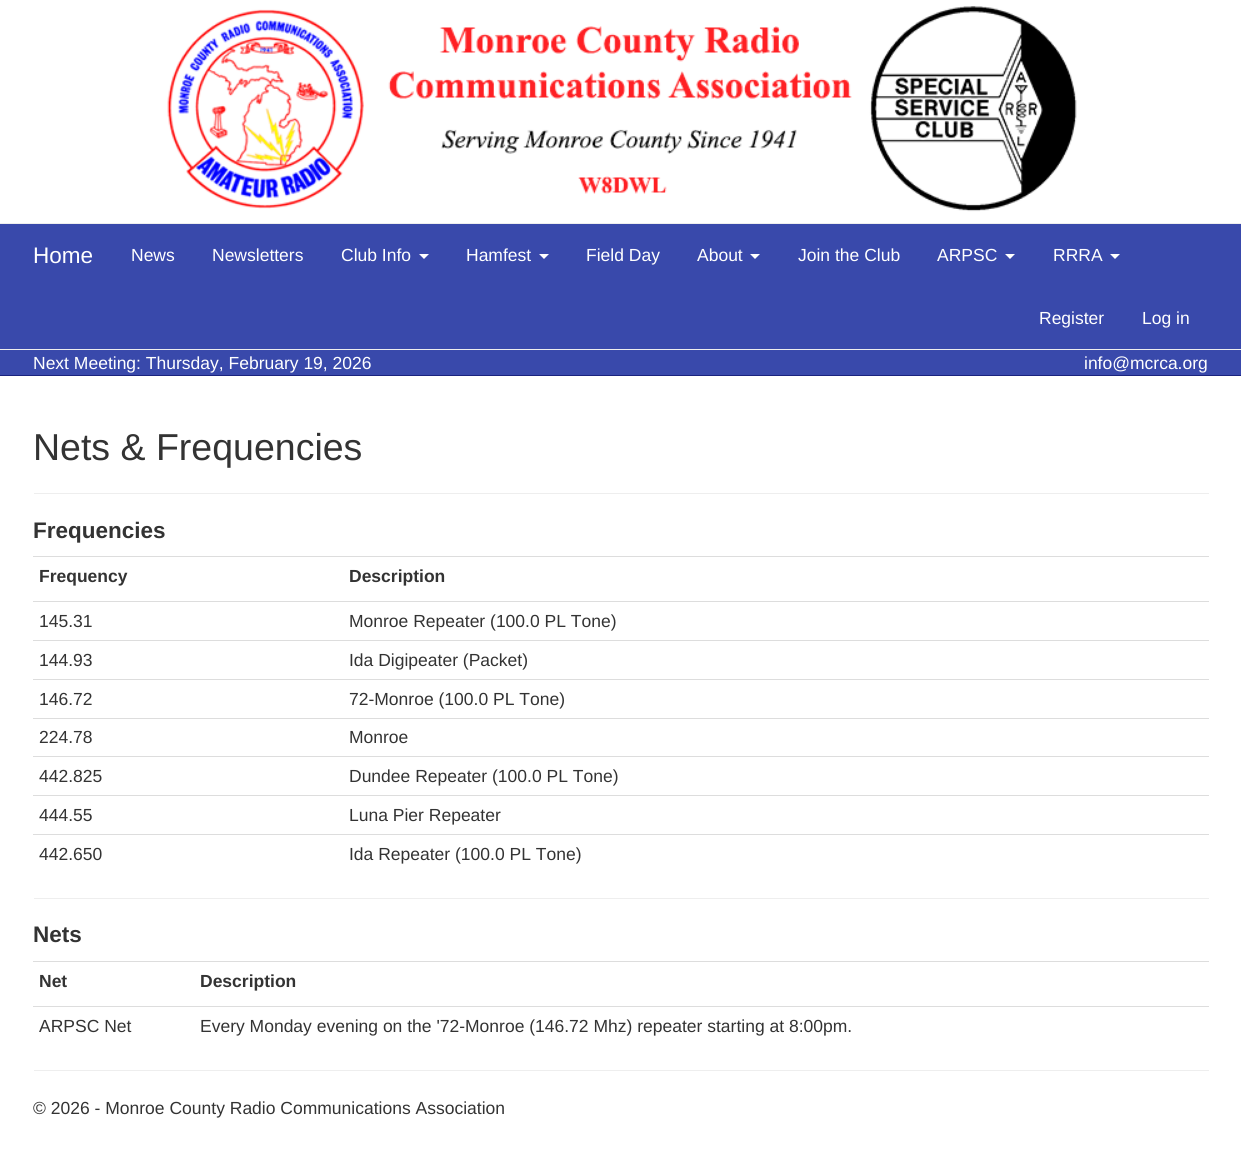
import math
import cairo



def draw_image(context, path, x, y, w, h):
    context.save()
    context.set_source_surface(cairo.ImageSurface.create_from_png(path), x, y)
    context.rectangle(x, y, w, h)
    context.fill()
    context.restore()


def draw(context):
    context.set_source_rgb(1, 1, 1)
    context.paint()
    context.set_source_rgb(238 / 255, 238 / 255, 238 / 255)
    context.rectangle(0, 223, 1241, 1)
    context.fill()
    draw_image(context, "images/1.png", 167, 6, 910, 206)
    context.set_source_rgb(57 / 255, 73 / 255, 171 / 255)
    context.rectangle(0, 224, 1241, 151)
    context.fill()
    context.set_source_rgb(26 / 255, 35 / 255, 126 / 255)
    context.rectangle(0, 375, 1241, 1)
    context.fill()
    context.set_source_rgb(1, 1, 1)
    context.new_path()
    context.move_to(419, 254)
    context.line_to(429, 254)
    context.line_to(424, 259)
    context.close_path()
    context.fill()
    context.new_path()
    context.move_to(539, 254)
    context.line_to(549, 254)
    context.line_to(544, 259)
    context.close_path()
    context.fill()
    context.new_path()
    context.move_to(750, 254)
    context.line_to(760, 254)
    context.line_to(755, 259)
    context.close_path()
    context.fill()
    context.new_path()
    context.move_to(1005, 254)
    context.line_to(1015, 254)
    context.line_to(1010, 259)
    context.close_path()
    context.fill()
    context.new_path()
    context.move_to(1110, 254)
    context.line_to(1120, 254)
    context.line_to(1115, 259)
    context.close_path()
    context.fill()
    context.set_source_rgb(238 / 255, 238 / 255, 238 / 255)
    context.rectangle(0, 349, 1241, 1)
    context.fill()
    context.rectangle(34, 493, 1175, 1)
    context.fill()
    context.set_source_rgb(221 / 255, 221 / 255, 221 / 255)
    context.rectangle(33, 556, 1176, 1)
    context.fill()
    context.rectangle(33, 601, 1176, 1)
    context.fill()
    context.rectangle(33, 640, 1176, 1)
    context.fill()
    context.rectangle(33, 679, 1176, 1)
    context.fill()
    context.rectangle(33, 718, 1176, 1)
    context.fill()
    context.rectangle(33, 756, 1176, 1)
    context.fill()
    context.rectangle(33, 795, 1176, 1)
    context.fill()
    context.rectangle(33, 834, 1176, 1)
    context.fill()
    context.set_source_rgb(238 / 255, 238 / 255, 238 / 255)
    context.rectangle(34, 898, 1175, 1)
    context.fill()
    context.set_source_rgb(221 / 255, 221 / 255, 221 / 255)
    context.rectangle(33, 961, 1176, 1)
    context.fill()
    context.rectangle(33, 1006, 1176, 1)
    context.fill()
    context.set_source_rgb(238 / 255, 238 / 255, 238 / 255)
    context.rectangle(34, 1070, 1175, 1)
    context.fill()
    context.select_font_face("Liberation Sans")
    context.set_font_size(22.5)
    context.set_source_rgb(1, 1, 1)
    context.move_to(33, 263)
    context.show_text("Home")
    context.set_font_size(17.5)
    context.move_to(131, 261)
    context.show_text("News")
    context.move_to(212, 261)
    context.show_text("Newsletters")
    context.move_to(341, 261)
    context.show_text("Club Info")
    context.move_to(466, 261)
    context.show_text("Hamfest")
    context.move_to(586, 261)
    context.show_text("Field Day")
    context.move_to(697, 261)
    context.show_text("About")
    context.move_to(798, 261)
    context.show_text("Join the Club")
    context.move_to(937, 261)
    context.show_text("ARPSC")
    context.move_to(1053, 261)
    context.show_text("RRRA")
    context.move_to(1039, 324)
    context.show_text("Register")
    context.move_to(1142, 324)
    context.show_text("Log in")
    context.move_to(33, 369)
    context.show_text("Next Meeting: Thursday, February 19, 2026")
    context.move_to(1084, 369)
    context.show_text("info@mcrca.org")
    context.set_font_size(37.5)
    context.set_source_rgb(51 / 255, 51 / 255, 51 / 255)
    context.move_to(33, 460)
    context.show_text("Nets & Frequencies")
    context.select_font_face("Liberation Sans", cairo.FontSlant.NORMAL, cairo.FontWeight.BOLD)
    context.set_font_size(22.5)
    context.move_to(33, 538)
    context.show_text("Frequencies")
    context.set_font_size(17.5)
    context.move_to(39, 582)
    context.show_text("Frequency")
    context.move_to(349, 582)
    context.show_text("Description")
    context.select_font_face("Liberation Sans")
    context.move_to(39, 627)
    context.show_text("145.31")
    context.move_to(349, 627)
    context.show_text("Monroe Repeater (100.0 PL Tone)")
    context.move_to(39, 666)
    context.show_text("144.93")
    context.move_to(349, 666)
    context.show_text("Ida Digipeater (Packet)")
    context.move_to(39, 705)
    context.show_text("146.72")
    context.move_to(349, 705)
    context.show_text("72-Monroe (100.0 PL Tone)")
    context.move_to(39, 743)
    context.show_text("224.78")
    context.move_to(349, 743)
    context.show_text("Monroe")
    context.move_to(39, 782)
    context.show_text("442.825")
    context.move_to(349, 782)
    context.show_text("Dundee Repeater (100.0 PL Tone)")
    context.move_to(39, 821)
    context.show_text("444.55")
    context.move_to(349, 821)
    context.show_text("Luna Pier Repeater")
    context.move_to(39, 860)
    context.show_text("442.650")
    context.move_to(349, 860)
    context.show_text("Ida Repeater (100.0 PL Tone)")
    context.select_font_face("Liberation Sans", cairo.FontSlant.NORMAL, cairo.FontWeight.BOLD)
    context.set_font_size(22.5)
    context.move_to(33, 942)
    context.show_text("Nets")
    context.set_font_size(17.5)
    context.move_to(39, 987)
    context.show_text("Net")
    context.move_to(200, 987)
    context.show_text("Description")
    context.select_font_face("Liberation Sans")
    context.move_to(39, 1032)
    context.show_text("ARPSC Net")
    context.move_to(200, 1032)
    context.show_text("Every Monday evening on the '72-Monroe (146.72 Mhz) repeater starting at 8:00pm.")
    context.move_to(33, 1114)
    context.show_text("© 2026 - Monroe County Radio Communications Association")


surface = cairo.ImageSurface(cairo.Format.RGB24, 1241, 1164)
context = cairo.Context(surface)
options = cairo.FontOptions()
options.set_hint_metrics(cairo.HintMetrics.OFF)
options.set_hint_style(cairo.HintStyle.NONE)
context.set_font_options(options)
context.set_miter_limit(4)
draw(context)
surface.write_to_png("out.png")
